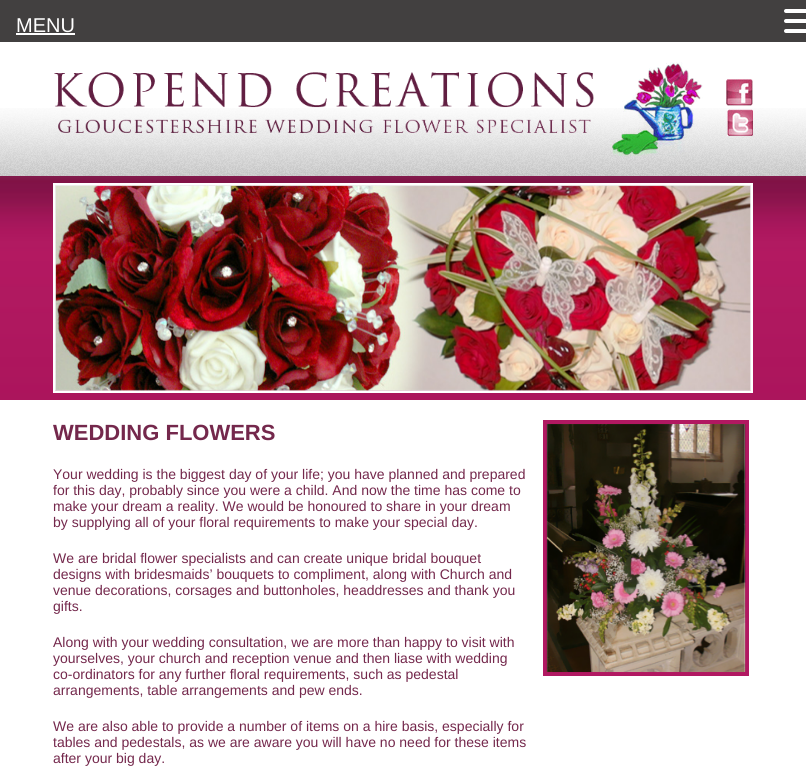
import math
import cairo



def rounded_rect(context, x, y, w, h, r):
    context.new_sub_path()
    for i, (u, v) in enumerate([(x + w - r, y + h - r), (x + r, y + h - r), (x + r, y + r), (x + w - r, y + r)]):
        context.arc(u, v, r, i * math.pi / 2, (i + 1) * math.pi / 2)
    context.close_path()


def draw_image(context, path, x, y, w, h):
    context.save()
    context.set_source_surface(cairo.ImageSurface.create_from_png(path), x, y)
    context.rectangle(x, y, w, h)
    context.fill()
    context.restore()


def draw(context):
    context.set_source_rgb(1, 1, 1)
    context.paint()
    context.set_source_rgb(66 / 255, 64 / 255, 64 / 255)
    context.rectangle(0, 0, 806, 42)
    context.fill()
    context.set_source_rgb(1, 1, 1)
    context.rectangle(16, 33, 59, 2)
    context.fill()
    rounded_rect(context, 784, 9, 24, 4, 2)
    context.fill()
    rounded_rect(context, 784, 19, 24, 4, 2)
    context.fill()
    rounded_rect(context, 784, 29, 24, 4, 2)
    context.fill()
    draw_image(context, "images/1.png", 0, 108, 806, 68)
    draw_image(context, "images/2.png", 54, 62, 649, 94)
    draw_image(context, "images/3.png", 726, 79, 27, 27)
    draw_image(context, "images/4.png", 727, 109, 26, 27)
    draw_image(context, "images/5.png", 0, 176, 806, 224)
    context.rectangle(54, 184, 698, 208)
    context.stroke()
    draw_image(context, "images/6.png", 55, 185, 696, 206)
    context.rectangle(545, 422, 202, 252)
    context.set_source_rgb(177 / 255, 24 / 255, 97 / 255)
    context.set_line_width(4)
    context.stroke()
    draw_image(context, "images/7.png", 546, 424, 200, 249)
    context.select_font_face("Liberation Sans")
    context.set_font_size(20)
    context.set_source_rgb(1, 1, 1)
    context.move_to(16, 32)
    context.show_text("MENU")
    context.select_font_face("Liberation Sans", cairo.FontSlant.NORMAL, cairo.FontWeight.BOLD)
    context.set_font_size(22)
    context.set_source_rgb(116 / 255, 40 / 255, 76 / 255)
    context.move_to(53, 440)
    context.show_text("WEDDING FLOWERS")
    context.select_font_face("Liberation Sans")
    context.set_font_size(14)
    context.move_to(53, 479)
    context.show_text("Your wedding is the biggest day of your life; you have planned and prepared")
    context.move_to(53, 495)
    context.show_text("for this day, probably since you were a child. And now the time has come to")
    context.move_to(53, 511)
    context.show_text("make your dream a reality. We would be honoured to share in your dream")
    context.move_to(53, 527)
    context.show_text("by supplying all of your floral requirements to make your special day.")
    context.move_to(53, 563)
    context.show_text("We are bridal flower specialists and can create unique bridal bouquet")
    context.move_to(53, 579)
    context.show_text("designs with bridesmaids’ bouquets to compliment, along with Church and")
    context.move_to(53, 595)
    context.show_text("venue decorations, corsages and buttonholes, headdresses and thank you")
    context.move_to(53, 611)
    context.show_text("gifts.")
    context.move_to(53, 647)
    context.show_text("Along with your wedding consultation, we are more than happy to visit with")
    context.move_to(53, 663)
    context.show_text("yourselves, your church and reception venue and then liase with wedding")
    context.move_to(53, 679)
    context.show_text("co-ordinators for any further floral requirements, such as pedestal")
    context.move_to(53, 695)
    context.show_text("arrangements, table arrangements and pew ends.")
    context.move_to(53, 731)
    context.show_text("We are also able to provide a number of items on a hire basis, especially for")
    context.move_to(53, 747)
    context.show_text("tables and pedestals, as we are aware you will have no need for these items")
    context.move_to(53, 763)
    context.show_text("after your big day.")


surface = cairo.ImageSurface(cairo.Format.RGB24, 806, 772)
context = cairo.Context(surface)
options = cairo.FontOptions()
options.set_hint_metrics(cairo.HintMetrics.OFF)
options.set_hint_style(cairo.HintStyle.NONE)
context.set_font_options(options)
context.set_miter_limit(4)
draw(context)
surface.write_to_png("out.png")
